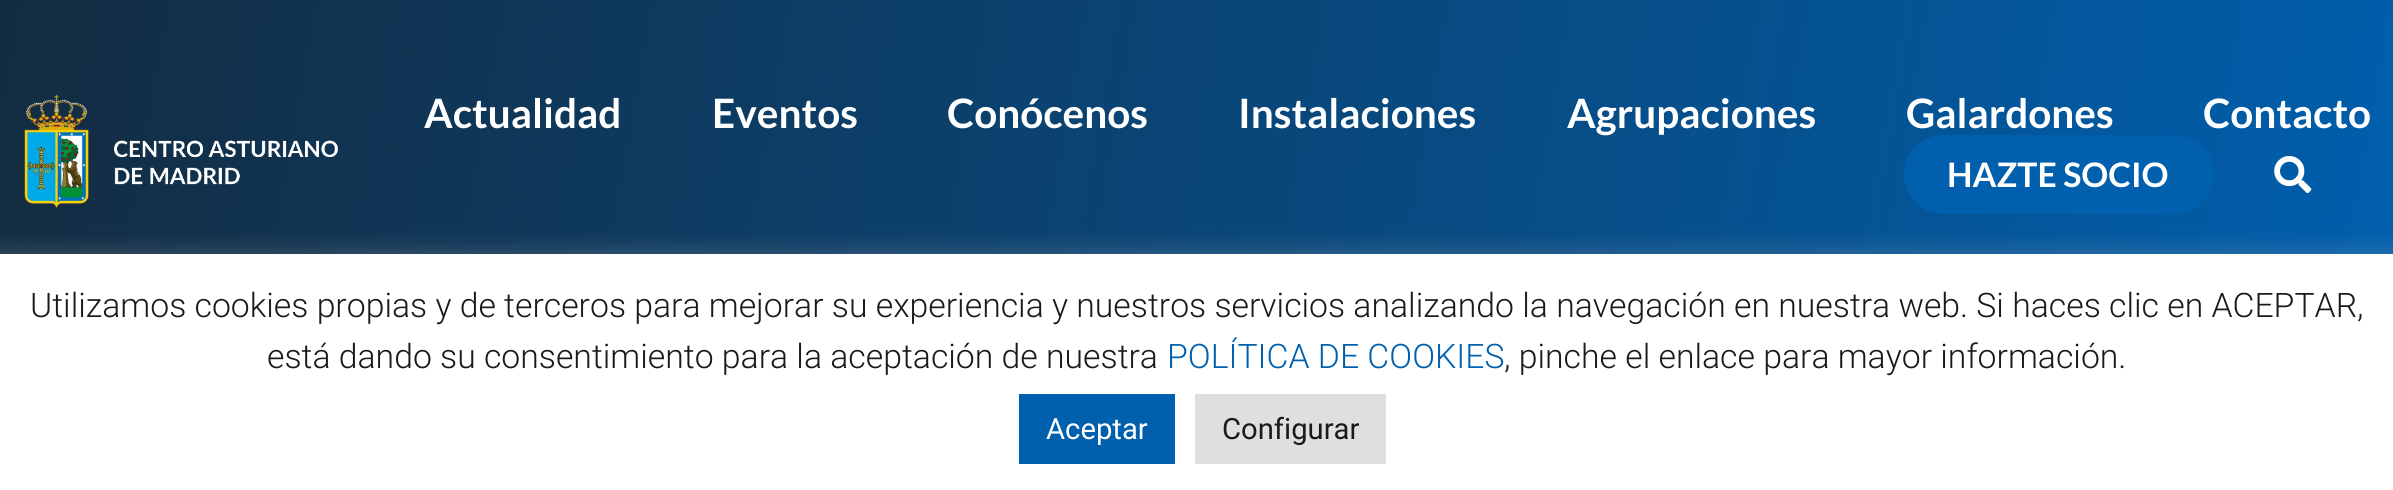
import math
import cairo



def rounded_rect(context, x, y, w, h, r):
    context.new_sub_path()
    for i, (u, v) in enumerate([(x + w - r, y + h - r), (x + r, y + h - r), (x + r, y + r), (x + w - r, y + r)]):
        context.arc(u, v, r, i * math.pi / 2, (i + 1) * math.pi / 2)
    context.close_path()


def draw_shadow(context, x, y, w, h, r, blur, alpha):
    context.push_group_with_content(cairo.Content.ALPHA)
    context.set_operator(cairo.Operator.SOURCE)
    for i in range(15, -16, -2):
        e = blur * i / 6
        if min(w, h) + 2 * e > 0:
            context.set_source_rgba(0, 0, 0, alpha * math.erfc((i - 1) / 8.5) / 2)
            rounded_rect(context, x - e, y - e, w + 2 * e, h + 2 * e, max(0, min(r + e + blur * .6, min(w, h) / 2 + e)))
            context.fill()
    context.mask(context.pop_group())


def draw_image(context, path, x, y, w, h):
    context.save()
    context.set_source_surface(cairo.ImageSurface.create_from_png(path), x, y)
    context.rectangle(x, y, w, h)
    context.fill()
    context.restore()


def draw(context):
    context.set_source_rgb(1, 1, 1)
    context.paint()
    gradient = cairo.LinearGradient(-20, 116, 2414, 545)
    gradient.add_color_stop_rgba(0, 19 / 255, 44 / 255, 65 / 255, 1)
    gradient.add_color_stop_rgba(1, 0, 96 / 255, 175 / 255, 1)
    context.set_source(gradient)
    context.rectangle(0, 0, 2393, 254)
    context.fill()
    draw_image(context, "images/1.png", 24, 94, 314, 115)
    context.set_source_rgb(0, 96 / 255, 173 / 255)
    rounded_rect(context, 1904, 135, 310, 79, 39.5)
    context.fill()
    draw_image(context, "images/2.png", 2274, 156, 38, 38)
    context.set_source_rgb(172 / 255, 171 / 255, 171 / 255)
    draw_shadow(context, 0, 252, 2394, 236, 0, 11, 0.3)
    context.set_source_rgb(1, 1, 1)
    context.rectangle(0, 254, 2393, 236)
    context.fill()
    context.set_source_rgb(0, 96 / 255, 173 / 255)
    context.rectangle(1019, 394, 156, 70)
    context.fill()
    context.set_source_rgb(222 / 255, 223 / 255, 224 / 255)
    context.rectangle(1195, 394, 191, 70)
    context.fill()
    context.select_font_face("Lato", cairo.FontSlant.NORMAL, cairo.FontWeight.BOLD)
    context.set_font_size(40.5)
    context.set_source_rgb(1, 1, 1)
    context.move_to(424, 128)
    context.show_text("Actualidad")
    context.move_to(712, 128)
    context.show_text("Eventos")
    context.move_to(947, 128)
    context.show_text("Conócenos")
    context.move_to(1238, 128)
    context.show_text("Instalaciones")
    context.move_to(1567, 128)
    context.show_text("Agrupaciones")
    context.move_to(1906, 128)
    context.show_text("Galardones")
    context.move_to(2203, 128)
    context.show_text("Contacto")
    context.set_font_size(33.75)
    context.move_to(1947, 187)
    context.show_text("HAZTE SOCIO")
    context.select_font_face("Roboto Light")
    context.set_source_rgb(26 / 255, 26 / 255, 26 / 255)
    context.move_to(30, 317)
    context.show_text("Utilizamos cookies propias y de terceros para mejorar su experiencia y nuestros servicios analizando la navegación en nuestra web. Si haces clic en ACEPTAR,")
    context.move_to(267, 368)
    context.show_text("está dando su consentimiento para la aceptación de nuestra")
    context.set_source_rgb(0, 96 / 255, 173 / 255)
    context.move_to(1167, 368)
    context.show_text("POLÍTICA DE COOKIES")
    context.set_source_rgb(26 / 255, 26 / 255, 26 / 255)
    context.move_to(1504, 368)
    context.show_text(", pinche el enlace para mayor información.")
    context.select_font_face("Roboto")
    context.set_font_size(29.25)
    context.set_source_rgb(1, 1, 1)
    context.move_to(1046, 439)
    context.show_text("Aceptar")
    context.set_source_rgb(26 / 255, 26 / 255, 26 / 255)
    context.move_to(1222, 439)
    context.show_text("Configurar")


surface = cairo.ImageSurface(cairo.Format.RGB24, 2393, 490)
context = cairo.Context(surface)
options = cairo.FontOptions()
options.set_hint_metrics(cairo.HintMetrics.OFF)
options.set_hint_style(cairo.HintStyle.NONE)
context.set_font_options(options)
context.set_miter_limit(4)
draw(context)
surface.write_to_png("out.png")
